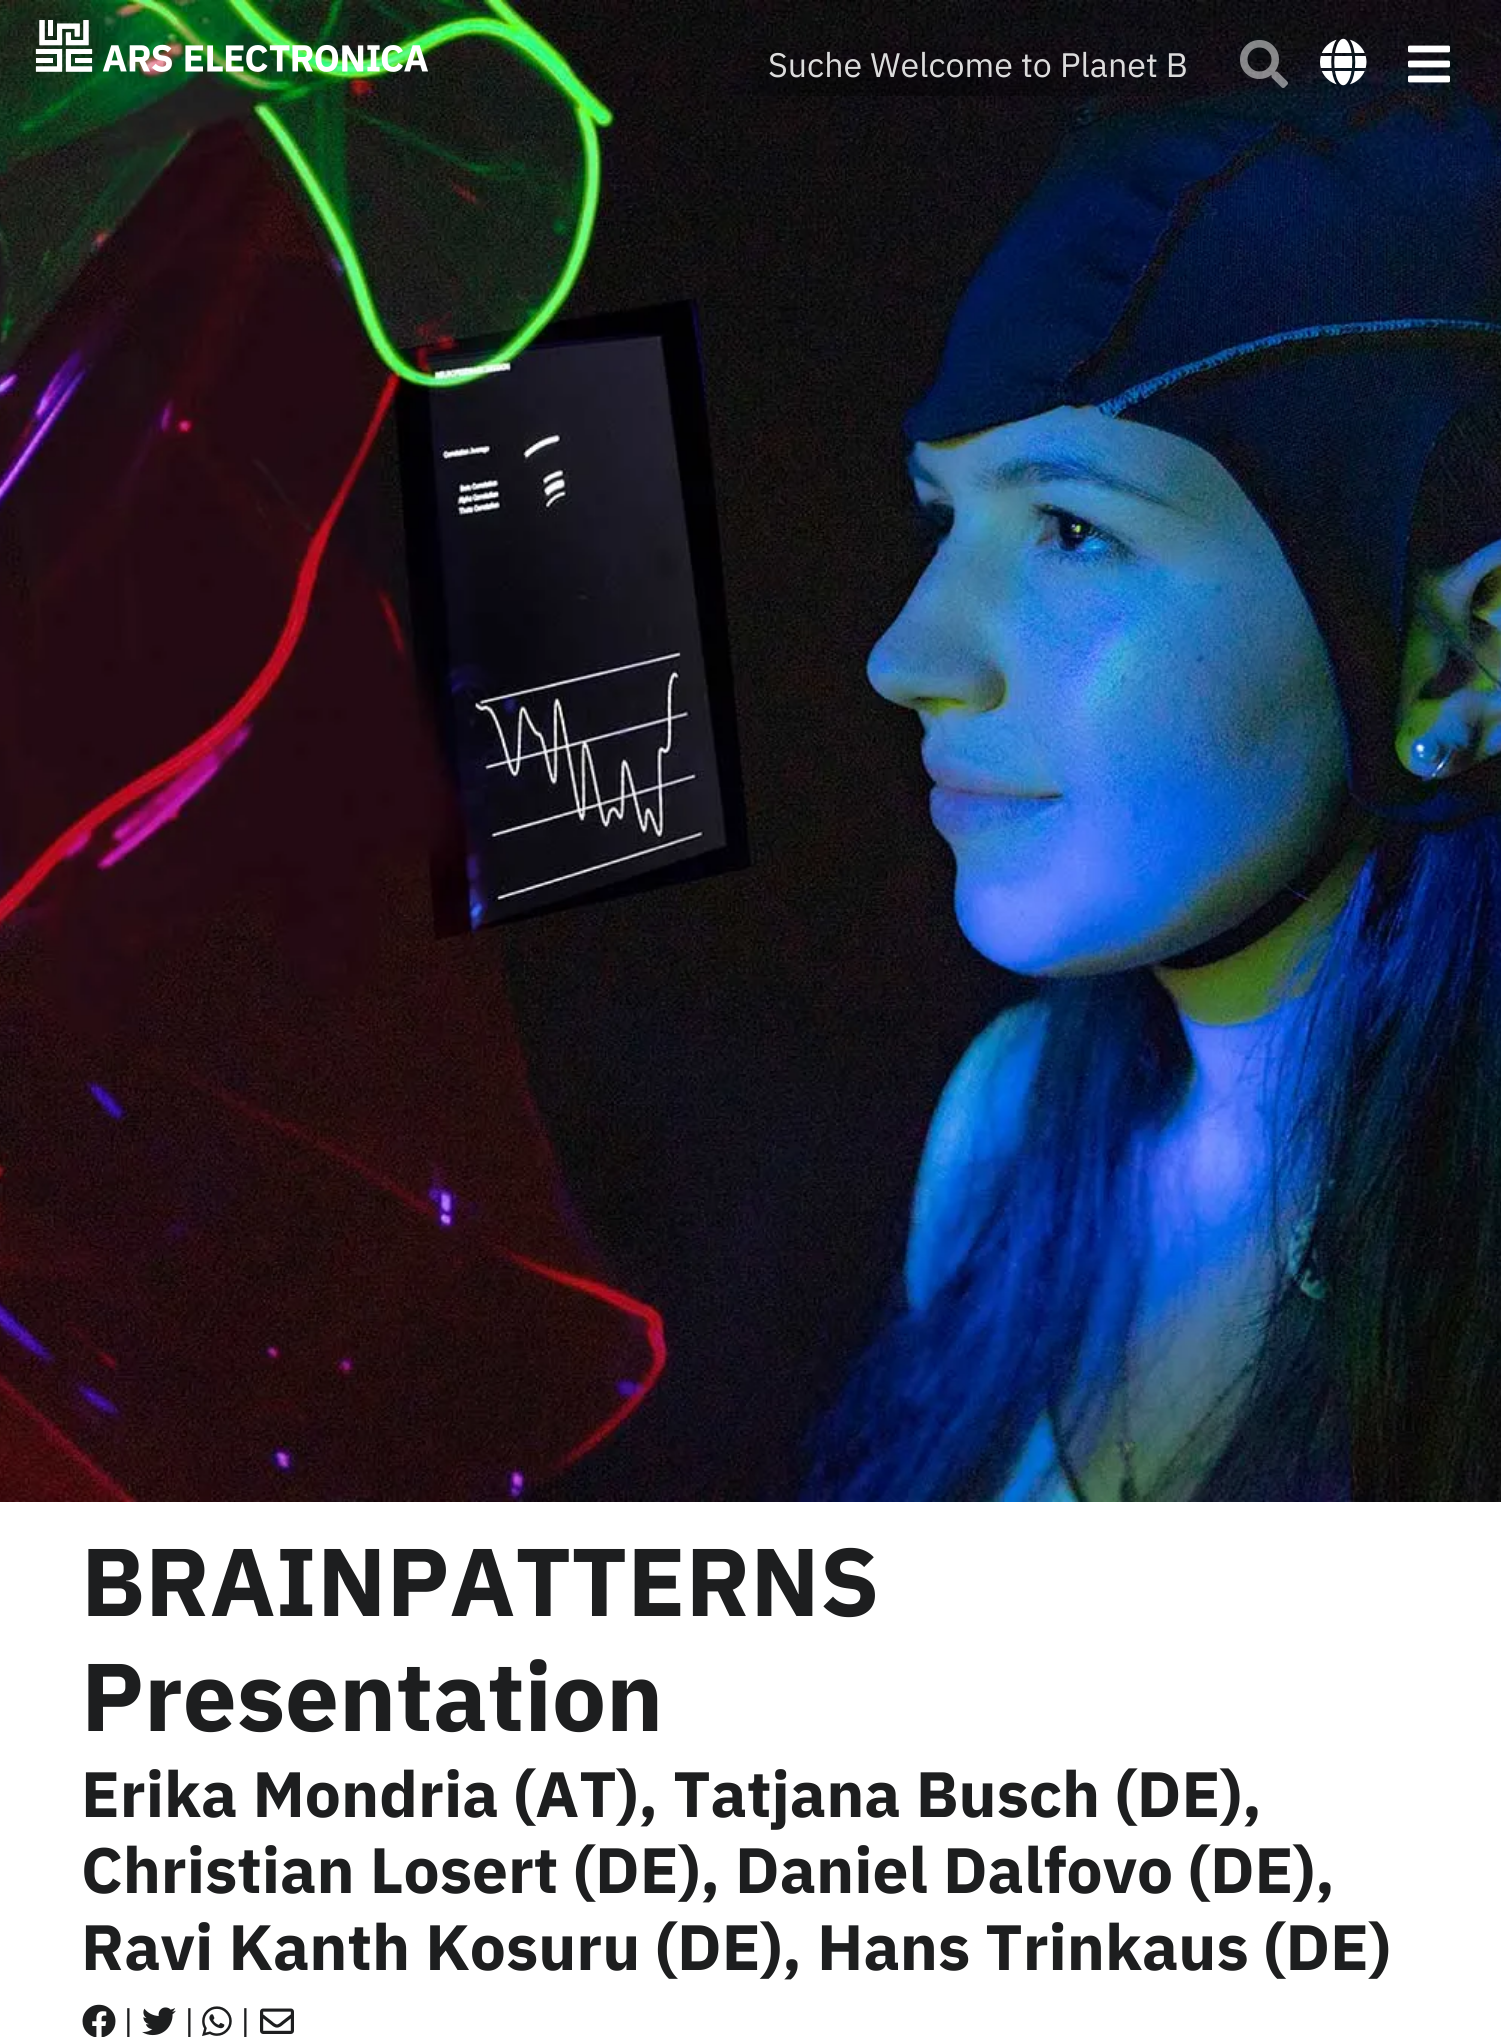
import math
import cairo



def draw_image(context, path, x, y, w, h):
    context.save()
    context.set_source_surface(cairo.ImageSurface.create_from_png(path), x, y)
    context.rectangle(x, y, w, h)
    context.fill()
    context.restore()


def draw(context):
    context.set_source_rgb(1, 1, 1)
    context.paint()
    draw_image(context, "images/1.png", 0, 0, 1501, 1502)
    draw_image(context, "images/2.png", 35, 20, 393, 52)
    draw_image(context, "images/3.png", 1240, 40, 48, 48)
    draw_image(context, "images/4.png", 1320, 38, 47, 48)
    draw_image(context, "images/5.png", 1408, 45, 42, 38)
    draw_image(context, "images/6.png", 82, 2004, 34, 33)
    draw_image(context, "images/7.png", 142, 2007, 34, 29)
    draw_image(context, "images/8.png", 202, 2006, 30, 31)
    draw_image(context, "images/9.png", 260, 2008, 34, 26)
    context.select_font_face("IBM Plex Sans")
    context.set_font_size(34)
    context.set_source_rgb(220 / 255, 220 / 255, 220 / 255)
    context.move_to(768, 77)
    context.show_text("Suche Welcome to Planet B")
    context.select_font_face("IBM Plex Sans", cairo.FontSlant.NORMAL, cairo.FontWeight.BOLD)
    context.set_font_size(96)
    context.set_source_rgb(29 / 255, 30 / 255, 31 / 255)
    context.move_to(81, 1616)
    context.show_text("BRAINPATTERNS")
    context.move_to(81, 1731)
    context.show_text("Presentation")
    context.set_font_size(64)
    context.move_to(81, 1817)
    context.show_text("Erika Mondria (AT), Tatjana Busch (DE),")
    context.move_to(81, 1893)
    context.show_text("Christian Losert (DE), Daniel Dalfovo (DE),")
    context.move_to(81, 1970)
    context.show_text("Ravi Kanth Kosuru (DE), Hans Trinkaus (DE)")
    context.select_font_face("IBM Plex Sans")
    context.set_font_size(34)
    context.move_to(123, 2034)
    context.show_text("|")
    context.move_to(184, 2034)
    context.show_text("|")
    context.move_to(240, 2034)
    context.show_text("|")


surface = cairo.ImageSurface(cairo.Format.RGB24, 1501, 2037)
context = cairo.Context(surface)
options = cairo.FontOptions()
options.set_hint_metrics(cairo.HintMetrics.OFF)
options.set_hint_style(cairo.HintStyle.NONE)
context.set_font_options(options)
context.set_miter_limit(4)
draw(context)
surface.write_to_png("out.png")
